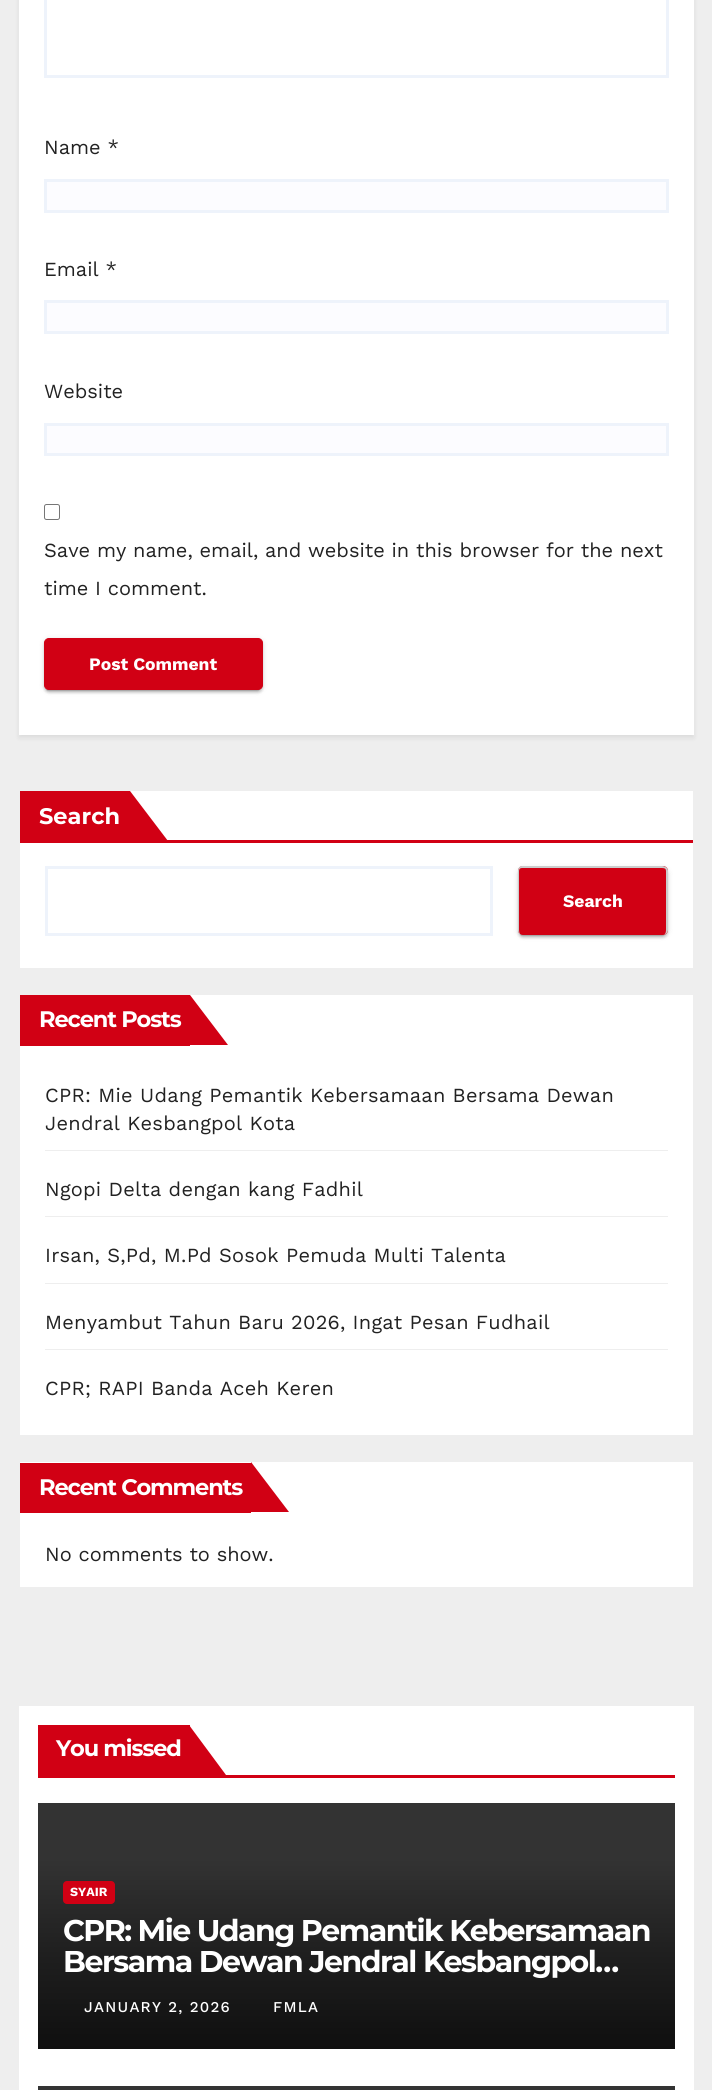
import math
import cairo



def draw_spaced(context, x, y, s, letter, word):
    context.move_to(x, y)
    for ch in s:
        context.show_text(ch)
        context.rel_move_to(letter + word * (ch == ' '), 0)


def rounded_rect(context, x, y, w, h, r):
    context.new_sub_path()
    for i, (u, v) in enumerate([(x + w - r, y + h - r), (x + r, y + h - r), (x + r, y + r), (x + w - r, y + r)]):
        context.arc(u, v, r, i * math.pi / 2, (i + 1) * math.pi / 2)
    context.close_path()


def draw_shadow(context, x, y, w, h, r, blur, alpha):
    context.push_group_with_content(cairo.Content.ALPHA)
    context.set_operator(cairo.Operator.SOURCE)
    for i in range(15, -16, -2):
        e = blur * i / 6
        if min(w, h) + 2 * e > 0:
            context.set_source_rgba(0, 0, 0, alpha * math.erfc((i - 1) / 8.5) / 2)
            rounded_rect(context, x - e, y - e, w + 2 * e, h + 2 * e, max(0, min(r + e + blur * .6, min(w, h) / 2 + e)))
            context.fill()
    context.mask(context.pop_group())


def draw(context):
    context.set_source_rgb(238 / 255, 238 / 255, 238 / 255)
    context.paint()
    context.set_source_rgb(0, 0, 0)
    draw_shadow(context, 19, -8, 675, 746, 0, 2.5, 0.08)
    context.set_source_rgb(1, 1, 1)
    context.rectangle(19, 0, 675, 735)
    context.fill()
    context.rectangle(45.5, -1.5, 622, 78)
    context.set_source_rgb(238 / 255, 243 / 255, 251 / 255)
    context.set_line_width(3)
    context.stroke()
    context.set_source_rgb(252 / 255, 252 / 255, 1)
    context.rectangle(45.5, 180.5, 622, 31)
    context.fill_preserve()
    context.set_source_rgb(238 / 255, 243 / 255, 251 / 255)
    context.stroke()
    context.set_source_rgb(252 / 255, 252 / 255, 1)
    context.rectangle(45.5, 301.5, 622, 31)
    context.fill_preserve()
    context.set_source_rgb(238 / 255, 243 / 255, 251 / 255)
    context.stroke()
    context.set_source_rgb(252 / 255, 252 / 255, 1)
    context.rectangle(45.5, 424.5, 622, 30)
    context.fill_preserve()
    context.set_source_rgb(238 / 255, 243 / 255, 251 / 255)
    context.stroke()
    rounded_rect(context, 44.5, 504.5, 15, 15, 2)
    context.set_source_rgb(118 / 255, 118 / 255, 118 / 255)
    context.set_line_width(1)
    context.stroke()
    context.set_source_rgb(0, 0, 0)
    draw_shadow(context, 44, 639, 219, 52, 5, 3, 0.12)
    draw_shadow(context, 46, 644, 214, 47, 2.5, 0.5, 0.2)
    draw_shadow(context, 44, 640, 219, 53, 5, 1, 0.14)
    context.set_source_rgb(209 / 255, 0, 20 / 255)
    rounded_rect(context, 44.5, 638.5, 218, 51, 4.5)
    context.fill_preserve()
    context.stroke()
    context.set_source_rgb(1, 1, 1)
    context.rectangle(20, 791, 673, 177)
    context.fill()
    context.set_source_rgb(209 / 255, 0, 20 / 255)
    context.rectangle(20, 791, 110, 49)
    context.fill()
    context.new_path()
    context.move_to(130, 841)
    context.line_to(130, 791)
    context.line_to(168, 841)
    context.close_path()
    context.fill()
    context.rectangle(20, 840, 673, 3)
    context.fill()
    context.rectangle(46.5, 867.5, 445, 67)
    context.set_source_rgb(238 / 255, 243 / 255, 251 / 255)
    context.set_line_width(3)
    context.stroke()
    context.set_source_rgb(0, 0, 0)
    draw_shadow(context, 518, 868, 150, 68, 5, 3, 0.12)
    draw_shadow(context, 520, 873, 145, 63, 2.5, 0.5, 0.2)
    draw_shadow(context, 518, 869, 150, 69, 5, 1, 0.14)
    context.set_source_rgb(209 / 255, 0, 20 / 255)
    rounded_rect(context, 518, 866, 150, 69, 5)
    context.fill()
    context.set_source_rgb(204 / 255, 204 / 255, 204 / 255)
    context.set_fill_rule(cairo.FillRule.EVEN_ODD)
    context.new_path()
    context.move_to(522, 866)
    context.line_to(662, 866)
    context.curve_to(665, 866, 668, 868, 668, 871)
    context.line_to(668, 930)
    context.curve_to(668, 933, 665, 935, 662, 935)
    context.line_to(522, 935)
    context.curve_to(520, 935, 518, 933, 518, 930)
    context.line_to(518, 871)
    context.curve_to(518, 868, 520, 866, 522, 866)
    context.close_path()
    context.move_to(522, 868)
    context.line_to(662, 868)
    context.curve_to(665, 868, 666, 869, 666, 871)
    context.line_to(666, 930)
    context.curve_to(666, 933, 665, 935, 662, 935)
    context.line_to(522, 935)
    context.curve_to(520, 935, 519, 933, 519, 930)
    context.line_to(519, 871)
    context.curve_to(519, 869, 520, 868, 522, 868)
    context.close_path()
    context.fill()
    context.set_source_rgb(1, 1, 1)
    context.rectangle(20, 995, 673, 440)
    context.fill()
    context.set_source_rgb(209 / 255, 0, 20 / 255)
    context.rectangle(20, 995, 170, 51)
    context.fill()
    context.set_fill_rule(cairo.FillRule.WINDING)
    context.new_path()
    context.move_to(190, 1045)
    context.line_to(190, 995)
    context.line_to(228, 1045)
    context.close_path()
    context.fill()
    context.set_source_rgb(238 / 255, 238 / 255, 238 / 255)
    context.rectangle(45, 1150, 623, 1)
    context.fill()
    context.rectangle(45, 1216, 623, 1)
    context.fill()
    context.rectangle(45, 1283, 623, 1)
    context.fill()
    context.rectangle(45, 1349, 623, 1)
    context.fill()
    context.set_source_rgb(1, 1, 1)
    context.rectangle(20, 1462, 673, 125)
    context.fill()
    context.set_source_rgb(209 / 255, 0, 20 / 255)
    context.rectangle(20, 1463, 231, 50)
    context.fill()
    context.new_path()
    context.move_to(251, 1512)
    context.line_to(251, 1462)
    context.line_to(289, 1512)
    context.close_path()
    context.fill()
    context.set_source_rgb(1, 1, 1)
    context.rectangle(19, 1706, 675, 384)
    context.fill()
    context.set_source_rgb(209 / 255, 0, 20 / 255)
    context.rectangle(38, 1775, 637, 3)
    context.fill()
    context.rectangle(38, 1725, 152, 50)
    context.fill()
    context.new_path()
    context.move_to(189, 1775)
    context.line_to(189, 1725)
    context.line_to(226, 1775)
    context.close_path()
    context.fill()
    context.set_source_rgb(51 / 255, 51 / 255, 51 / 255)
    context.rectangle(38, 1803, 637, 56)
    context.fill()
    gradient = cairo.LinearGradient(356, 1859, 356, 2049)
    gradient.add_color_stop_rgba(0, 51 / 255, 51 / 255, 51 / 255, 1)
    gradient.add_color_stop_rgba(0.5, 31 / 255, 31 / 255, 31 / 255, 1)
    gradient.add_color_stop_rgba(1, 15 / 255, 15 / 255, 15 / 255, 1)
    context.set_source(gradient)
    context.rectangle(38, 1859, 637, 190)
    context.fill()
    context.set_source_rgb(209 / 255, 0, 20 / 255)
    rounded_rect(context, 63, 1881, 52, 23, 4)
    context.fill()
    context.set_source_rgb(51 / 255, 51 / 255, 51 / 255)
    context.rectangle(38, 2086, 637, 4)
    context.fill()
    context.select_font_face("Work Sans")
    context.set_font_size(20)
    context.set_source_rgb(34 / 255, 34 / 255, 34 / 255)
    context.move_to(44, 154)
    context.show_text("Name *")
    context.move_to(44, 276)
    context.show_text("Email *")
    context.move_to(44, 398)
    context.show_text("Website")
    context.move_to(44, 557)
    context.show_text("Save my name, email, and website in this browser for the next")
    context.move_to(44, 595)
    context.show_text("time I comment.")
    context.select_font_face("Work Sans", cairo.FontSlant.NORMAL, cairo.FontWeight.BOLD)
    context.set_font_size(17.5)
    context.set_source_rgb(1, 1, 1)
    context.move_to(89, 670)
    context.show_text("Post Comment")
    context.select_font_face("Montserrat", cairo.FontSlant.NORMAL, cairo.FontWeight.BOLD)
    context.set_font_size(22.5)
    context.move_to(39, 824)
    context.show_text("Search")
    context.select_font_face("Work Sans", cairo.FontSlant.NORMAL, cairo.FontWeight.BOLD)
    context.set_font_size(17.5)
    context.move_to(563, 907)
    context.show_text("Search")
    context.select_font_face("Montserrat", cairo.FontSlant.NORMAL, cairo.FontWeight.BOLD)
    context.set_font_size(22.5)
    draw_spaced(context, 39, 1027, "Recent Posts", -1.1, 0)
    context.select_font_face("Work Sans")
    context.set_font_size(20)
    context.set_source_rgb(34 / 255, 34 / 255, 34 / 255)
    draw_spaced(context, 45, 1102, "CPR: Mie Udang Pemantik Kebersamaan Bersama Dewan", 0.25, 0)
    draw_spaced(context, 45, 1130, "Jendral Kesbangpol Kota", 0.25, 0)
    draw_spaced(context, 45, 1196, "Ngopi Delta dengan kang Fadhil", 0.25, 0)
    draw_spaced(context, 45, 1262, "Irsan, S,Pd, M.Pd Sosok Pemuda Multi Talenta", 0.25, 0)
    draw_spaced(context, 45, 1329, "Menyambut Tahun Baru 2026, Ingat Pesan Fudhail", 0.25, 0)
    draw_spaced(context, 45, 1395, "CPR; RAPI Banda Aceh Keren", 0.25, 0)
    context.select_font_face("Montserrat", cairo.FontSlant.NORMAL, cairo.FontWeight.BOLD)
    context.set_font_size(22.5)
    context.set_source_rgb(1, 1, 1)
    draw_spaced(context, 39, 1495, "Recent Comments", -1.1, 0)
    context.select_font_face("Work Sans")
    context.set_font_size(20)
    context.set_source_rgb(34 / 255, 34 / 255, 34 / 255)
    context.move_to(45, 1561)
    context.show_text("No comments to show.")
    context.select_font_face("Montserrat", cairo.FontSlant.NORMAL, cairo.FontWeight.BOLD)
    context.set_font_size(22.5)
    context.set_source_rgb(1, 1, 1)
    draw_spaced(context, 56, 1756, "You missed", -1.1, 0)
    context.select_font_face("Work Sans", cairo.FontSlant.NORMAL, cairo.FontWeight.BOLD)
    context.set_font_size(12.5)
    context.move_to(70, 1896)
    context.show_text("SYAIR")
    context.select_font_face("Montserrat", cairo.FontSlant.NORMAL, cairo.FontWeight.BOLD)
    context.set_font_size(30)
    draw_spaced(context, 63, 1941, "CPR: Mie Udang Pemantik Kebersamaan", -1.5, 0)
    draw_spaced(context, 63, 1972, "Bersama Dewan Jendral Kesbangpol…", -1.5, 0)
    context.select_font_face("Work Sans Medium")
    context.set_font_size(15)
    draw_spaced(context, 84, 2012, "JANUARY 2, 2026", 1.25, 0)
    draw_spaced(context, 273, 2012, "FMLA", 1.25, 0)


surface = cairo.ImageSurface(cairo.Format.RGB24, 712, 2090)
context = cairo.Context(surface)
options = cairo.FontOptions()
options.set_hint_metrics(cairo.HintMetrics.OFF)
options.set_hint_style(cairo.HintStyle.NONE)
context.set_font_options(options)
context.set_miter_limit(4)
draw(context)
surface.write_to_png("out.png")
